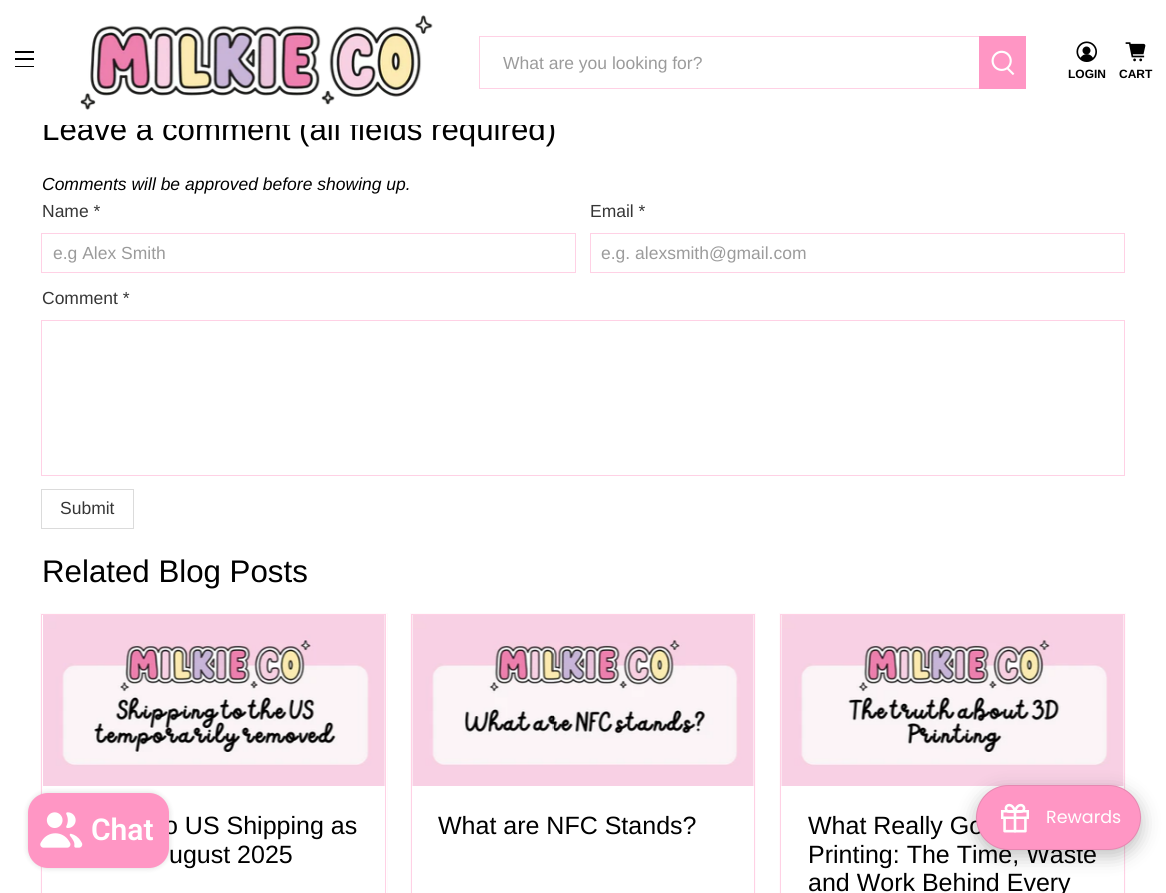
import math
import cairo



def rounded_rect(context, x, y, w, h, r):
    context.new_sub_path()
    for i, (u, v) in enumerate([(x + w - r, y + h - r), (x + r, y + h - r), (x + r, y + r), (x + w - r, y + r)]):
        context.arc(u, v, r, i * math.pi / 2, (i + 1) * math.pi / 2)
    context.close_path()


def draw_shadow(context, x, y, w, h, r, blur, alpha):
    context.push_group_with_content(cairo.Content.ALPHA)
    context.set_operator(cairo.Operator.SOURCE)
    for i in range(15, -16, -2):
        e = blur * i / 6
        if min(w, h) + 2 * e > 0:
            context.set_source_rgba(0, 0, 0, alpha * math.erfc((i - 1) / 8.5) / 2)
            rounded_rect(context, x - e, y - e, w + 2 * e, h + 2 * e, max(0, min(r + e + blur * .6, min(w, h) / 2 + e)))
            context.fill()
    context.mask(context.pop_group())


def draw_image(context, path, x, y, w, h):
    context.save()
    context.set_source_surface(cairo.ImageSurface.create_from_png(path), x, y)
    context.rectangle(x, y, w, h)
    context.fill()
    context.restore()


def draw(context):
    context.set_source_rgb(1, 1, 1)
    context.paint()
    context.set_source_rgb(0, 0, 0)
    context.rectangle(15, 51, 19, 2)
    context.fill()
    context.rectangle(15, 58, 19, 2)
    context.fill()
    context.rectangle(15, 66, 19, 1)
    context.fill()
    draw_image(context, "images/1.png", 80, 15, 353, 95)
    context.rectangle(479.5, 36.5, 500, 52)
    context.set_source_rgb(1, 209 / 255, 229 / 255)
    context.set_line_width(1)
    context.stroke()
    context.set_source_rgb(1, 150 / 255, 196 / 255)
    context.rectangle(979, 36, 47, 53)
    context.fill()
    draw_image(context, "images/2.png", 991, 50, 24, 25)
    draw_image(context, "images/3.png", 1076, 41, 21, 21)
    draw_image(context, "images/4.png", 1125, 42, 21, 20)
    context.rectangle(41.5, 233.5, 534, 39)
    context.set_source_rgb(1, 209 / 255, 229 / 255)
    context.stroke()
    context.rectangle(590.5, 233.5, 534, 39)
    context.stroke()
    context.rectangle(41.5, 320.5, 1083, 155)
    context.stroke()
    context.rectangle(41.5, 489.5, 92, 39)
    context.set_source_rgb(219 / 255, 219 / 255, 219 / 255)
    context.stroke()
    context.rectangle(40.5, 613.5, 347, 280)
    context.set_source_rgb(1, 250 / 255, 252 / 255)
    context.stroke()
    context.rectangle(41.5, 614.5, 344, 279)
    context.set_source_rgb(1, 209 / 255, 229 / 255)
    context.stroke()
    draw_image(context, "images/5.png", 43, 615, 342, 171)
    context.rectangle(410.5, 613.5, 345, 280)
    context.set_source_rgb(1, 250 / 255, 252 / 255)
    context.stroke()
    context.rectangle(411.5, 614.5, 343, 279)
    context.set_source_rgb(1, 209 / 255, 229 / 255)
    context.stroke()
    draw_image(context, "images/6.png", 412, 615, 342, 171)
    context.rectangle(779.5, 613.5, 346, 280)
    context.set_source_rgb(1, 250 / 255, 252 / 255)
    context.stroke()
    context.rectangle(780.5, 614.5, 344, 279)
    context.set_source_rgb(1, 209 / 255, 229 / 255)
    context.stroke()
    draw_image(context, "images/7.png", 781, 615, 343, 171)
    context.set_source_rgb(0, 0, 0)
    draw_shadow(context, 28, 793, 141, 75, 20, 3, 0.15)
    draw_shadow(context, 976, 791, 165, 65, 32.5, 9.5, 0.25)
    context.select_font_face("Liberation Sans")
    context.set_font_size(17.5)
    context.set_source_rgb(155 / 255, 155 / 255, 155 / 255)
    context.move_to(503, 69)
    context.show_text("What are you looking for?")
    context.select_font_face("Liberation Sans", cairo.FontSlant.NORMAL, cairo.FontWeight.BOLD)
    context.set_font_size(12)
    context.set_source_rgb(0, 0, 0)
    context.move_to(1068, 78)
    context.show_text("LOGIN")
    context.move_to(1119, 78)
    context.show_text("CART")
    context.select_font_face("Liberation Sans")
    context.set_font_size(31.25)
    context.move_to(42, 140)
    context.show_text("Leave a comment (all fields required)")
    context.set_source_rgb(1, 1, 1)
    context.rectangle(44, 117, 509, 8)
    context.fill()
    context.select_font_face("Liberation Sans", cairo.FontSlant.ITALIC)
    context.set_font_size(17.5)
    context.set_source_rgb(0, 0, 0)
    context.move_to(42, 190)
    context.show_text("Comments will be approved before showing up.")
    context.select_font_face("Liberation Sans")
    context.set_source_rgb(54 / 255, 54 / 255, 54 / 255)
    context.move_to(42, 217)
    context.show_text("Name *")
    context.set_source_rgb(155 / 255, 155 / 255, 155 / 255)
    context.move_to(53, 259)
    context.show_text("e.g Alex Smith")
    context.set_source_rgb(54 / 255, 54 / 255, 54 / 255)
    context.move_to(590, 217)
    context.show_text("Email *")
    context.set_source_rgb(155 / 255, 155 / 255, 155 / 255)
    context.move_to(601, 259)
    context.show_text("e.g. alexsmith@gmail.com")
    context.set_source_rgb(54 / 255, 54 / 255, 54 / 255)
    context.move_to(42, 304)
    context.show_text("Comment *")
    context.move_to(60, 514)
    context.show_text("Submit")
    context.set_font_size(31.25)
    context.set_source_rgb(0, 0, 0)
    context.move_to(42, 582)
    context.show_text("Related Blog Posts")
    context.set_font_size(25)
    context.move_to(164, 834)
    context.show_text("o US Shipping as")
    context.move_to(169, 863)
    context.show_text("ugust 2025")
    context.move_to(438, 834)
    context.show_text("What are NFC Stands?")
    context.move_to(808, 834)
    context.show_text("What Really Go")
    context.move_to(808, 863)
    context.show_text("Printing: The Time, Waste")
    context.move_to(808, 891)
    context.show_text("and Work Behind Every")
    context.set_source_rgb(1, 150 / 255, 196 / 255)
    rounded_rect(context, 28, 793, 141, 75, 20)
    context.fill()
    draw_image(context, "images/8.png", 40, 812, 43, 36)
    context.select_font_face("Roboto SemiBold")
    context.set_font_size(30)
    context.set_source_rgb(1, 1, 1)
    context.move_to(91, 840)
    context.show_text("Chat")
    context.set_source_rgb(1, 150 / 255, 196 / 255)
    rounded_rect(context, 976, 785, 165, 65, 32.5)
    context.fill()
    rounded_rect(context, 976.5, 785.5, 164, 64, 32)
    context.set_source_rgba(0, 0, 0, 0.1)
    context.stroke()
    draw_image(context, "images/9.png", 1001, 803, 28, 30)
    context.select_font_face("Poppins")
    context.set_font_size(17.5)
    context.set_source_rgb(1, 1, 1)
    context.move_to(1046, 823)
    context.show_text("Rewards")


surface = cairo.ImageSurface(cairo.Format.RGB24, 1166, 893)
context = cairo.Context(surface)
options = cairo.FontOptions()
options.set_hint_metrics(cairo.HintMetrics.OFF)
options.set_hint_style(cairo.HintStyle.NONE)
context.set_font_options(options)
context.set_miter_limit(4)
draw(context)
surface.write_to_png("out.png")
